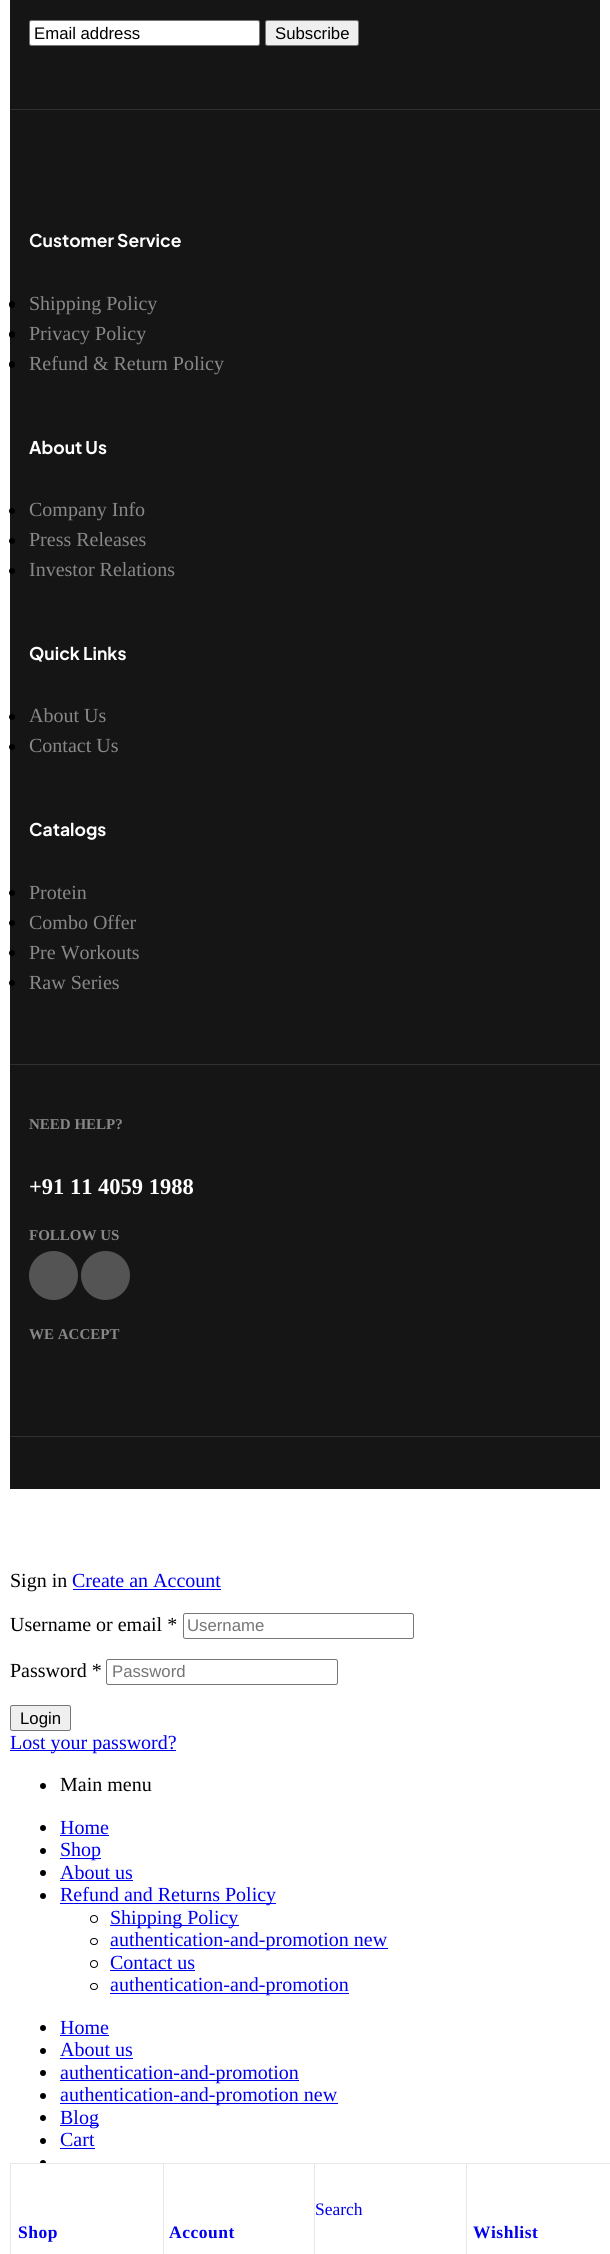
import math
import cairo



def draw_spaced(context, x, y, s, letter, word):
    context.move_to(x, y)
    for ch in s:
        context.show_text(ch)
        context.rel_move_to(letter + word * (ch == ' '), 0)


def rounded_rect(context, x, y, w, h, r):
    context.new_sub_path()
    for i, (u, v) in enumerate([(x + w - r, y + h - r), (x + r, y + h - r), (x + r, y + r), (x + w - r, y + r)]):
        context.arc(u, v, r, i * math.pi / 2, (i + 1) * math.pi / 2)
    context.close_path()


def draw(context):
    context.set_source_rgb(1, 1, 1)
    context.paint()
    context.set_source_rgb(21 / 255, 21 / 255, 21 / 255)
    context.rectangle(10, 0, 590, 109)
    context.fill()
    context.set_source_rgb(48 / 255, 48 / 255, 48 / 255)
    context.rectangle(10, 109, 590, 1)
    context.fill()
    context.set_source_rgb(1, 1, 1)
    rounded_rect(context, 29.5, 20.5, 230, 25, 2)
    context.fill_preserve()
    context.set_source_rgb(118 / 255, 118 / 255, 118 / 255)
    context.set_line_width(1)
    context.stroke()
    context.set_source_rgb(239 / 255, 239 / 255, 239 / 255)
    rounded_rect(context, 265.5, 20.5, 93, 25, 2)
    context.fill_preserve()
    context.set_source_rgb(118 / 255, 118 / 255, 118 / 255)
    context.stroke()
    context.set_source_rgb(21 / 255, 21 / 255, 21 / 255)
    context.rectangle(10, 110, 590, 954)
    context.fill()
    context.set_source_rgb(0, 0, 0)
    rounded_rect(context, 9, 301, 6, 7, 3)
    context.fill()
    rounded_rect(context, 9, 331, 6, 7, 3)
    context.fill()
    rounded_rect(context, 9, 361, 6, 7, 3)
    context.fill()
    context.arc(12, 511, 3, 0, 2 * math.pi)
    context.fill()
    context.arc(12, 541, 3, 0, 2 * math.pi)
    context.fill()
    context.arc(12, 571, 3, 0, 2 * math.pi)
    context.fill()
    context.arc(12, 717, 3, 0, 2 * math.pi)
    context.fill()
    context.arc(12, 747, 3, 0, 2 * math.pi)
    context.fill()
    context.arc(12, 893, 3, 0, 2 * math.pi)
    context.fill()
    context.arc(12, 923, 3, 0, 2 * math.pi)
    context.fill()
    context.arc(12, 953, 3, 0, 2 * math.pi)
    context.fill()
    context.arc(12, 983, 3, 0, 2 * math.pi)
    context.fill()
    context.set_source_rgb(21 / 255, 21 / 255, 21 / 255)
    context.rectangle(10, 1065, 590, 424)
    context.fill()
    context.set_source_rgb(48 / 255, 48 / 255, 48 / 255)
    context.rectangle(10, 1064, 590, 1)
    context.fill()
    context.rectangle(10, 1436, 590, 1)
    context.fill()
    context.set_source_rgb(84 / 255, 84 / 255, 84 / 255)
    context.arc(53.5, 1275.5, 24.5, 0, 2 * math.pi)
    context.fill()
    context.arc(105.5, 1275.5, 24.5, 0, 2 * math.pi)
    context.fill()
    context.set_source_rgb(0, 0, 0)
    context.arc(43, 2163, 3, 0, 2 * math.pi)
    context.fill()
    context.set_source_rgb(1, 1, 1)
    context.rectangle(40, 2164, 6, 2)
    context.fill()
    context.rectangle(10.5, 2163.5, 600, 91)
    context.set_source_rgb(232 / 255, 232 / 255, 232 / 255)
    context.stroke()
    context.rectangle(466, 2164, 1, 90)
    context.fill()
    context.rectangle(163, 2164, 1, 90)
    context.fill()
    context.rectangle(314, 2164, 1, 90)
    context.fill()
    context.set_source_rgb(0, 0, 238 / 255)
    context.rectangle(73, 1589, 148, 1)
    context.fill()
    rounded_rect(context, 183.5, 1613.5, 230, 25, 2)
    context.set_source_rgb(118 / 255, 118 / 255, 118 / 255)
    context.stroke()
    rounded_rect(context, 106.5, 1659.5, 231, 25, 2)
    context.stroke()
    context.set_source_rgb(239 / 255, 239 / 255, 239 / 255)
    rounded_rect(context, 10.5, 1705.5, 60, 25, 2)
    context.fill_preserve()
    context.set_source_rgb(118 / 255, 118 / 255, 118 / 255)
    context.stroke()
    context.set_source_rgb(0, 0, 238 / 255)
    context.rectangle(10, 1750, 166, 1)
    context.fill()
    context.set_source_rgb(0, 0, 0)
    context.arc(43, 1786, 3, 0, 2 * math.pi)
    context.fill()
    context.arc(43, 1828, 3, 0, 2 * math.pi)
    context.fill()
    context.set_source_rgb(0, 0, 238 / 255)
    context.rectangle(60, 1835, 49, 1)
    context.fill()
    context.set_source_rgb(0, 0, 0)
    context.arc(43, 1851, 3, 0, 2 * math.pi)
    context.fill()
    context.set_source_rgb(0, 0, 238 / 255)
    context.rectangle(60, 1858, 41, 1)
    context.fill()
    context.set_source_rgb(0, 0, 0)
    context.arc(43, 1873, 3, 0, 2 * math.pi)
    context.fill()
    context.set_source_rgb(0, 0, 238 / 255)
    context.rectangle(60, 1880, 73, 1)
    context.fill()
    context.set_source_rgb(0, 0, 0)
    context.arc(43, 1896, 3, 0, 2 * math.pi)
    context.fill()
    context.set_source_rgb(0, 0, 238 / 255)
    context.rectangle(60, 1903, 216, 1)
    context.fill()
    context.arc(94, 1919, 3.5, 0, 2 * math.pi)
    context.set_source_rgb(0, 0, 0)
    context.stroke()
    context.set_source_rgb(0, 0, 238 / 255)
    context.rectangle(110, 1925, 129, 1)
    context.fill()
    rounded_rect(context, 90.5, 1938.5, 7, 6, 3)
    context.set_source_rgb(0, 0, 0)
    context.stroke()
    context.set_source_rgb(0, 0, 238 / 255)
    context.rectangle(110, 1948, 278, 1)
    context.fill()
    context.arc(94, 1964, 3.5, 0, 2 * math.pi)
    context.set_source_rgb(0, 0, 0)
    context.stroke()
    context.set_source_rgb(0, 0, 238 / 255)
    context.rectangle(110, 1970, 85, 1)
    context.fill()
    rounded_rect(context, 90.5, 1983.5, 7, 6, 3)
    context.set_source_rgb(0, 0, 0)
    context.stroke()
    context.set_source_rgb(0, 0, 238 / 255)
    context.rectangle(110, 1993, 239, 1)
    context.fill()
    context.set_source_rgb(0, 0, 0)
    context.arc(43, 2028, 3, 0, 2 * math.pi)
    context.fill()
    context.set_source_rgb(0, 0, 238 / 255)
    context.rectangle(60, 2035, 49, 1)
    context.fill()
    context.set_source_rgb(0, 0, 0)
    context.arc(43, 2051, 3, 0, 2 * math.pi)
    context.fill()
    context.set_source_rgb(0, 0, 238 / 255)
    context.rectangle(60, 2058, 73, 1)
    context.fill()
    context.set_source_rgb(0, 0, 0)
    context.arc(43, 2073, 3, 0, 2 * math.pi)
    context.fill()
    context.set_source_rgb(0, 0, 238 / 255)
    context.rectangle(60, 2080, 239, 1)
    context.fill()
    context.set_source_rgb(0, 0, 0)
    context.arc(43, 2096, 3, 0, 2 * math.pi)
    context.fill()
    context.set_source_rgb(0, 0, 238 / 255)
    context.rectangle(60, 2103, 278, 1)
    context.fill()
    context.set_source_rgb(0, 0, 0)
    context.arc(43, 2118, 3, 0, 2 * math.pi)
    context.fill()
    context.set_source_rgb(0, 0, 238 / 255)
    context.rectangle(60, 2125, 39, 1)
    context.fill()
    context.set_source_rgb(0, 0, 0)
    context.arc(43, 2141, 3, 0, 2 * math.pi)
    context.fill()
    context.set_source_rgb(0, 0, 238 / 255)
    context.rectangle(60, 2148, 35, 1)
    context.fill()
    context.select_font_face("Liberation Sans")
    context.set_font_size(16.75)
    context.set_source_rgb(0, 0, 0)
    context.move_to(34, 39)
    context.show_text("Email address")
    context.move_to(275, 39)
    context.show_text("Subscribe")
    context.select_font_face("Plus Jakarta Sans", cairo.FontSlant.NORMAL, cairo.FontWeight.BOLD)
    context.set_font_size(17.5)
    context.set_source_rgb(1, 1, 1)
    context.move_to(29, 247)
    context.show_text("Customer Service")
    context.select_font_face("Liberation Serif")
    context.set_font_size(20)
    context.set_source_rgb(136 / 255, 136 / 255, 136 / 255)
    context.move_to(29, 310)
    context.show_text("Shipping Policy")
    context.move_to(29, 340)
    context.show_text("Privacy Policy")
    context.move_to(29, 370)
    context.show_text("Refund & Return Policy")
    context.select_font_face("Plus Jakarta Sans", cairo.FontSlant.NORMAL, cairo.FontWeight.BOLD)
    context.set_font_size(17.5)
    context.set_source_rgb(1, 1, 1)
    context.move_to(29, 454)
    context.show_text("About Us")
    context.select_font_face("Liberation Serif")
    context.set_font_size(20)
    context.set_source_rgb(136 / 255, 136 / 255, 136 / 255)
    context.move_to(29, 516)
    context.show_text("Company Info")
    context.move_to(29, 546)
    context.show_text("Press Releases")
    context.move_to(29, 576)
    context.show_text("Investor Relations")
    context.select_font_face("Plus Jakarta Sans", cairo.FontSlant.NORMAL, cairo.FontWeight.BOLD)
    context.set_font_size(17.5)
    context.set_source_rgb(1, 1, 1)
    context.move_to(29, 660)
    context.show_text("Quick Links")
    context.select_font_face("Liberation Serif")
    context.set_font_size(20)
    context.set_source_rgb(136 / 255, 136 / 255, 136 / 255)
    context.move_to(29, 722)
    context.show_text("About Us")
    context.move_to(29, 752)
    context.show_text("Contact Us")
    context.select_font_face("Plus Jakarta Sans", cairo.FontSlant.NORMAL, cairo.FontWeight.BOLD)
    context.set_font_size(17.5)
    context.set_source_rgb(1, 1, 1)
    context.move_to(29, 836)
    context.show_text("Catalogs")
    context.select_font_face("Liberation Serif")
    context.set_font_size(20)
    context.set_source_rgb(136 / 255, 136 / 255, 136 / 255)
    context.move_to(29, 899)
    context.show_text("Protein")
    context.move_to(29, 929)
    context.show_text("Combo Offer")
    context.move_to(29, 959)
    context.show_text("Pre Workouts")
    context.move_to(29, 989)
    context.show_text("Raw Series")
    context.select_font_face("Liberation Serif", cairo.FontSlant.NORMAL, cairo.FontWeight.BOLD)
    context.set_font_size(15)
    context.move_to(29, 1129)
    context.show_text("NEED HELP?")
    context.set_font_size(22.5)
    context.set_source_rgb(1, 1, 1)
    context.move_to(29, 1194)
    context.show_text("+91 11 4059 1988")
    context.set_font_size(15)
    context.set_source_rgb(136 / 255, 136 / 255, 136 / 255)
    context.move_to(29, 1240)
    context.show_text("FOLLOW US")
    context.move_to(29, 1339)
    context.show_text("WE ACCEPT")
    context.select_font_face("Liberation Serif")
    context.set_font_size(17.5)
    context.set_source_rgb(0, 0, 238 / 255)
    context.move_to(315, 2215)
    context.show_text("Search")
    context.select_font_face("Liberation Serif", cairo.FontSlant.NORMAL, cairo.FontWeight.BOLD)
    draw_spaced(context, 18, 2238, "Shop", 0.5, 0)
    draw_spaced(context, 169, 2238, "Account", 0.5, 0)
    draw_spaced(context, 473, 2238, "Wishlist", 0.5, 0)
    context.select_font_face("Liberation Serif")
    context.set_font_size(20)
    context.set_source_rgb(0, 0, 0)
    context.move_to(10, 1587)
    context.show_text("Sign in")
    context.set_source_rgb(0, 0, 238 / 255)
    context.move_to(72, 1587)
    context.show_text("Create an Account")
    context.set_source_rgb(0, 0, 0)
    context.move_to(10, 1631)
    context.show_text("Username or email *")
    context.select_font_face("Liberation Sans")
    context.set_font_size(16.75)
    context.set_source_rgb(117 / 255, 117 / 255, 117 / 255)
    context.move_to(187, 1631)
    context.show_text("Username")
    context.select_font_face("Liberation Serif")
    context.set_font_size(20)
    context.set_source_rgb(0, 0, 0)
    context.move_to(10, 1677)
    context.show_text("Password *")
    context.select_font_face("Liberation Sans")
    context.set_font_size(16.75)
    context.set_source_rgb(117 / 255, 117 / 255, 117 / 255)
    context.move_to(112, 1677)
    context.show_text("Password")
    context.set_source_rgb(0, 0, 0)
    context.move_to(20, 1724)
    context.show_text("Login")
    context.select_font_face("Liberation Serif")
    context.set_font_size(20)
    context.set_source_rgb(0, 0, 238 / 255)
    context.move_to(10, 1749)
    context.show_text("Lost your password?")
    context.set_source_rgb(0, 0, 0)
    context.move_to(60, 1791)
    context.show_text("Main menu")
    context.set_source_rgb(0, 0, 238 / 255)
    context.move_to(60, 1834)
    context.show_text("Home")
    context.move_to(60, 1856)
    context.show_text("Shop")
    context.move_to(60, 1879)
    context.show_text("About us")
    context.move_to(60, 1901)
    context.show_text("Refund and Returns Policy")
    context.move_to(110, 1924)
    context.show_text("Shipping Policy")
    context.move_to(110, 1946)
    context.show_text("authentication-and-promotion new")
    context.move_to(110, 1969)
    context.show_text("Contact us")
    context.move_to(110, 1991)
    context.show_text("authentication-and-promotion")
    context.move_to(60, 2034)
    context.show_text("Home")
    context.move_to(60, 2056)
    context.show_text("About us")
    context.move_to(60, 2079)
    context.show_text("authentication-and-promotion")
    context.move_to(60, 2101)
    context.show_text("authentication-and-promotion new")
    context.move_to(60, 2124)
    context.show_text("Blog")
    context.move_to(60, 2146)
    context.show_text("Cart")


surface = cairo.ImageSurface(cairo.Format.RGB24, 610, 2254)
context = cairo.Context(surface)
options = cairo.FontOptions()
options.set_hint_metrics(cairo.HintMetrics.OFF)
options.set_hint_style(cairo.HintStyle.NONE)
context.set_font_options(options)
context.set_miter_limit(4)
draw(context)
surface.write_to_png("out.png")
